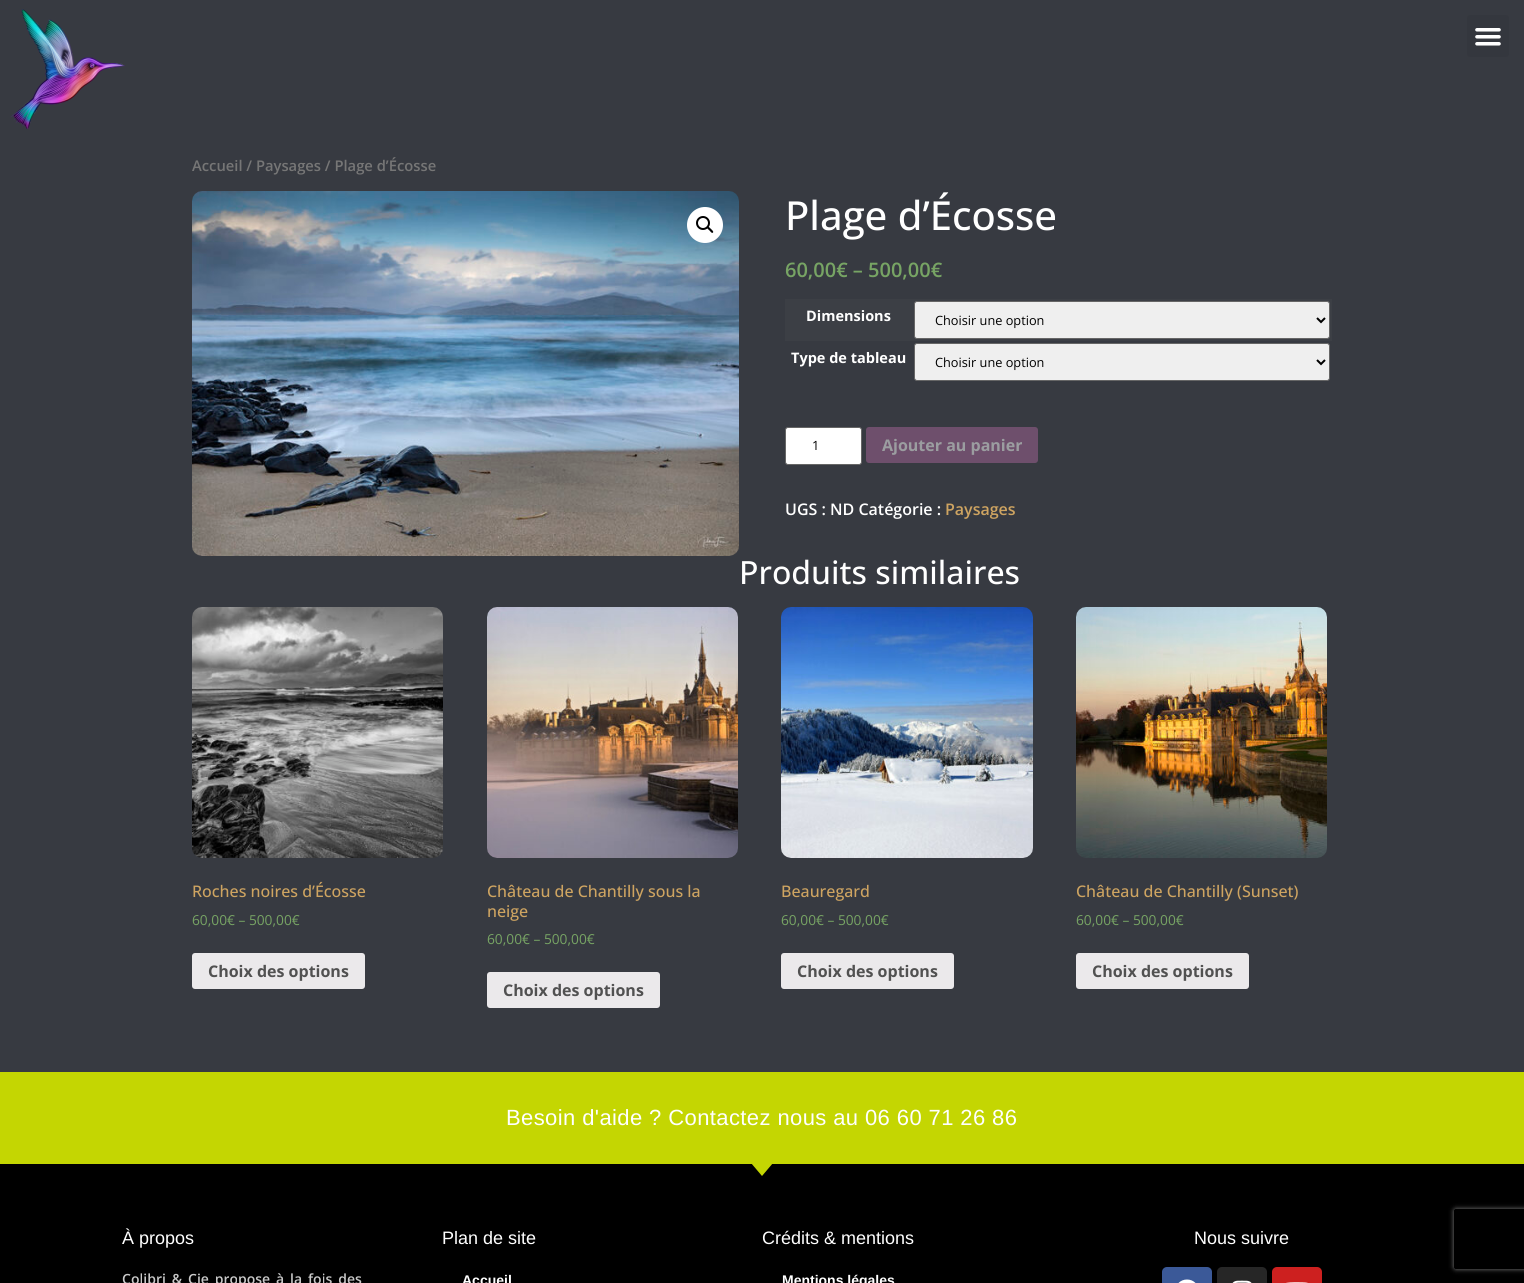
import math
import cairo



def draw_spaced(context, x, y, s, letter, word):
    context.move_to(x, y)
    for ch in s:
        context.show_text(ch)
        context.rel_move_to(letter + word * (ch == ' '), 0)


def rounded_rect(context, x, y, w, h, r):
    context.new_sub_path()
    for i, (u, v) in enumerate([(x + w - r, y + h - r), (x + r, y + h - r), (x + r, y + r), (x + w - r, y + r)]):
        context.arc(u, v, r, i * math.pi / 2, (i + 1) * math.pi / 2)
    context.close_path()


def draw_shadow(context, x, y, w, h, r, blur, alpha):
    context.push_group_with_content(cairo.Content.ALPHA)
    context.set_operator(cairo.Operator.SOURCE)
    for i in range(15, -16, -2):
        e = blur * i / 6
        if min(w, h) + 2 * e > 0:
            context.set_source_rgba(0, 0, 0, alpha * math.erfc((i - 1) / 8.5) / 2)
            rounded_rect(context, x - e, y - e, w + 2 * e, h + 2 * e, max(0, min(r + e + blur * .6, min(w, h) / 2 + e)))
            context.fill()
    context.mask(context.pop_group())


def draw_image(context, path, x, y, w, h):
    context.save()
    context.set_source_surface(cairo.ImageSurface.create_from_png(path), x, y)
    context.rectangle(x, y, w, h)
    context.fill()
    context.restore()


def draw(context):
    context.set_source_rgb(55 / 255, 58 / 255, 65 / 255)
    context.paint()
    draw_image(context, "images/1.png", 10, 9, 115, 120)
    context.set_source_rgb(52 / 255, 55 / 255, 62 / 255)
    rounded_rect(context, 1467, 15, 42, 42, 3)
    context.fill()
    draw_image(context, "images/2.png", 1475, 28, 26, 18)
    draw_image(context, "images/3.png", 192, 191, 547, 365)
    context.set_source_rgb(1, 1, 1)
    context.arc(705, 225, 18, 0, 2 * math.pi)
    context.fill()
    context.arc(703, 223, 6, 0, 2 * math.pi)
    context.set_source_rgb(0, 0, 0)
    context.stroke()
    context.new_path()
    context.move_to(707.5, 227)
    context.curve_to(708.5, 226, 710.5, 228.5, 711, 229)
    context.curve_to(711.5, 229.5, 714, 231.5, 713, 232.5)
    context.curve_to(712, 234, 710, 231, 709.5, 230.5)
    context.curve_to(709, 230, 706, 228, 707.5, 227)
    context.close_path()
    context.fill()
    context.set_source_rgb(60 / 255, 63 / 255, 69 / 255)
    context.rectangle(785, 299, 547, 42)
    context.fill()
    context.set_source_rgb(239 / 255, 239 / 255, 239 / 255)
    rounded_rect(context, 914.5, 301.5, 415, 37, 2.5)
    context.fill_preserve()
    context.set_source_rgb(102 / 255, 102 / 255, 102 / 255)
    context.set_line_width(1)
    context.stroke()
    context.new_path()
    context.move_to(1317, 318)
    context.line_to(1321, 322)
    context.line_to(1325, 318)
    context.set_source_rgb(0, 0, 0)
    context.set_line_width(2)
    context.stroke()
    context.set_source_rgb(239 / 255, 239 / 255, 239 / 255)
    rounded_rect(context, 914.5, 343.5, 415, 37, 2.5)
    context.fill_preserve()
    context.set_source_rgb(102 / 255, 102 / 255, 102 / 255)
    context.set_line_width(1)
    context.stroke()
    context.new_path()
    context.move_to(1317, 360)
    context.line_to(1321, 364)
    context.line_to(1325, 360)
    context.set_source_rgb(0, 0, 0)
    context.set_line_width(2)
    context.stroke()
    context.set_source_rgb(1, 1, 1)
    rounded_rect(context, 785.5, 427.5, 76, 37, 2.5)
    context.fill_preserve()
    context.set_source_rgb(102 / 255, 102 / 255, 102 / 255)
    context.set_line_width(1)
    context.stroke()
    context.set_source_rgb(110 / 255, 79 / 255, 108 / 255)
    rounded_rect(context, 866, 427, 172, 36, 3)
    context.fill()
    draw_image(context, "images/4.png", 192, 607, 251, 251)
    context.set_source_rgb(235 / 255, 233 / 255, 235 / 255)
    rounded_rect(context, 192, 953, 173, 36, 3)
    context.fill()
    draw_image(context, "images/5.png", 487, 607, 251, 251)
    rounded_rect(context, 487, 972, 173, 36, 3)
    context.fill()
    draw_image(context, "images/6.png", 781, 607, 252, 251)
    rounded_rect(context, 781, 953, 173, 36, 3)
    context.fill()
    draw_image(context, "images/7.png", 1076, 607, 251, 251)
    rounded_rect(context, 1076, 953, 173, 36, 3)
    context.fill()
    context.set_source_rgb(196 / 255, 214 / 255, 2 / 255)
    context.rectangle(0, 1072, 1524, 92)
    context.fill()
    context.set_source_rgb(0, 0, 0)
    context.rectangle(0, 1164, 1524, 119)
    context.fill()
    context.set_source_rgb(196 / 255, 214 / 255, 2 / 255)
    context.new_path()
    context.move_to(762, 1176)
    context.line_to(751, 1163)
    context.line_to(773, 1163)
    context.close_path()
    context.fill()
    context.set_source_rgb(59 / 255, 89 / 255, 152 / 255)
    rounded_rect(context, 1162, 1267, 50, 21, 5)
    context.fill()
    draw_image(context, "images/8.png", 1178, 1279, 18, 4)
    context.set_source_rgb(38 / 255, 38 / 255, 38 / 255)
    rounded_rect(context, 1217, 1267, 50, 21, 5)
    context.fill()
    draw_image(context, "images/9.png", 1232, 1280, 20, 3)
    context.set_source_rgb(205 / 255, 32 / 255, 31 / 255)
    rounded_rect(context, 1272, 1267, 50, 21, 5)
    context.fill()
    draw_image(context, "images/10.png", 1286, 1282, 22, 1)
    context.save()
    context.set_fill_rule(cairo.FillRule.EVEN_ODD)
    context.new_path()
    context.move_to(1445, 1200)
    context.line_to(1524, 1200)
    context.line_to(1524, 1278)
    context.line_to(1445, 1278)
    context.close_path()
    context.move_to(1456, 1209)
    context.line_to(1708, 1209)
    context.curve_to(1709, 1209, 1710, 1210, 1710, 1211)
    context.line_to(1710, 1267)
    context.curve_to(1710, 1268, 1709, 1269, 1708, 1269)
    context.line_to(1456, 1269)
    context.curve_to(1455, 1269, 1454, 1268, 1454, 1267)
    context.line_to(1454, 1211)
    context.curve_to(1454, 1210, 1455, 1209, 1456, 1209)
    context.close_path()
    context.clip()
    context.set_source_rgb(128 / 255, 128 / 255, 128 / 255)
    draw_shadow(context, 1454, 1209, 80, 60, 2, 2.5, 1)
    context.restore()
    context.select_font_face("Open Sans SemiBold")
    context.set_font_size(14.75)
    context.set_source_rgb(118 / 255, 118 / 255, 118 / 255)
    context.move_to(192, 171)
    context.show_text("Accueil / Paysages / Plage d’Écosse")
    context.select_font_face("Open Sans Medium")
    context.set_font_size(40)
    context.set_source_rgb(1, 1, 1)
    context.move_to(785, 230)
    context.show_text("Plage d’Écosse")
    context.select_font_face("Open Sans SemiBold")
    context.set_font_size(20)
    context.set_source_rgb(119 / 255, 164 / 255, 100 / 255)
    context.move_to(785, 277)
    context.show_text("60,00€ – 500,00€")
    context.select_font_face("Open Sans", cairo.FontSlant.NORMAL, cairo.FontWeight.BOLD)
    context.set_font_size(14.5)
    context.set_source_rgb(1, 1, 1)
    context.move_to(806, 321)
    context.show_text("Dimensions")
    context.select_font_face("Open Sans")
    context.set_font_size(12.75)
    context.set_source_rgb(0, 0, 0)
    context.move_to(935, 325)
    context.show_text("Choisir une option")
    context.select_font_face("Open Sans", cairo.FontSlant.NORMAL, cairo.FontWeight.BOLD)
    context.set_font_size(14.5)
    context.set_source_rgb(1, 1, 1)
    context.move_to(791, 363)
    context.show_text("Type de tableau")
    context.select_font_face("Open Sans")
    context.set_font_size(12.75)
    context.set_source_rgb(0, 0, 0)
    context.move_to(935, 367)
    context.show_text("Choisir une option")
    context.move_to(812, 450)
    context.show_text("1")
    context.select_font_face("Open Sans", cairo.FontSlant.NORMAL, cairo.FontWeight.BOLD)
    context.set_font_size(16)
    context.set_source_rgb(155 / 255, 157 / 255, 160 / 255)
    context.move_to(882, 451)
    context.show_text("Ajouter au panier")
    context.select_font_face("Open Sans SemiBold")
    context.set_source_rgb(1, 1, 1)
    context.move_to(785, 515)
    context.show_text("UGS : ND Catégorie :")
    context.set_source_rgb(206 / 255, 164 / 255, 97 / 255)
    context.move_to(945, 515)
    context.show_text("Paysages")
    context.select_font_face("Open Sans Medium")
    context.set_font_size(32)
    context.set_source_rgb(1, 1, 1)
    context.move_to(739, 584)
    context.show_text("Produits similaires")
    context.set_font_size(16)
    context.set_source_rgb(206 / 255, 164 / 255, 97 / 255)
    context.move_to(192, 897)
    context.show_text("Roches noires d’Écosse")
    context.select_font_face("Open Sans")
    context.set_font_size(13.75)
    context.set_source_rgb(119 / 255, 164 / 255, 100 / 255)
    context.move_to(192, 925)
    context.show_text("60,00€ – 500,00€")
    context.select_font_face("Open Sans", cairo.FontSlant.NORMAL, cairo.FontWeight.BOLD)
    context.set_font_size(16)
    context.set_source_rgb(81 / 255, 81 / 255, 81 / 255)
    context.move_to(208, 977)
    context.show_text("Choix des options")
    context.select_font_face("Open Sans Medium")
    context.set_source_rgb(206 / 255, 164 / 255, 97 / 255)
    context.move_to(487, 897)
    context.show_text("Château de Chantilly sous la")
    context.move_to(487, 917)
    context.show_text("neige")
    context.select_font_face("Open Sans")
    context.set_font_size(13.75)
    context.set_source_rgb(119 / 255, 164 / 255, 100 / 255)
    context.move_to(487, 944)
    context.show_text("60,00€ – 500,00€")
    context.select_font_face("Open Sans", cairo.FontSlant.NORMAL, cairo.FontWeight.BOLD)
    context.set_font_size(16)
    context.set_source_rgb(81 / 255, 81 / 255, 81 / 255)
    context.move_to(503, 996)
    context.show_text("Choix des options")
    context.select_font_face("Open Sans Medium")
    context.set_source_rgb(206 / 255, 164 / 255, 97 / 255)
    context.move_to(781, 897)
    context.show_text("Beauregard")
    context.select_font_face("Open Sans")
    context.set_font_size(13.75)
    context.set_source_rgb(119 / 255, 164 / 255, 100 / 255)
    context.move_to(781, 925)
    context.show_text("60,00€ – 500,00€")
    context.select_font_face("Open Sans", cairo.FontSlant.NORMAL, cairo.FontWeight.BOLD)
    context.set_font_size(16)
    context.set_source_rgb(81 / 255, 81 / 255, 81 / 255)
    context.move_to(797, 977)
    context.show_text("Choix des options")
    context.select_font_face("Open Sans Medium")
    context.set_source_rgb(206 / 255, 164 / 255, 97 / 255)
    context.move_to(1076, 897)
    context.show_text("Château de Chantilly (Sunset)")
    context.select_font_face("Open Sans")
    context.set_font_size(13.75)
    context.set_source_rgb(119 / 255, 164 / 255, 100 / 255)
    context.move_to(1076, 925)
    context.show_text("60,00€ – 500,00€")
    context.select_font_face("Open Sans", cairo.FontSlant.NORMAL, cairo.FontWeight.BOLD)
    context.set_font_size(16)
    context.set_source_rgb(81 / 255, 81 / 255, 81 / 255)
    context.move_to(1092, 977)
    context.show_text("Choix des options")
    context.select_font_face("Liberation Sans")
    context.set_font_size(22)
    context.set_source_rgb(1, 1, 1)
    draw_spaced(context, 506, 1125, "Besoin d'aide ? Contactez nous au 06 60 71 26 86", 0.4, 0)
    context.set_font_size(18)
    context.move_to(122, 1244)
    context.show_text("À propos")
    context.select_font_face("Open Sans SemiBold")
    context.set_font_size(14)
    context.set_source_rgb(201 / 255, 201 / 255, 201 / 255)
    draw_spaced(context, 122, 1284, "Colibri & Cie propose à la fois des", 0, 2.25)
    context.select_font_face("Liberation Sans")
    context.set_font_size(18)
    context.set_source_rgb(1, 1, 1)
    context.move_to(442, 1244)
    context.show_text("Plan de site")
    context.select_font_face("Liberation Sans", cairo.FontSlant.NORMAL, cairo.FontWeight.BOLD)
    context.set_font_size(14)
    context.move_to(462, 1285)
    context.show_text("Accueil")
    context.select_font_face("Liberation Sans")
    context.set_font_size(18)
    context.move_to(762, 1244)
    context.show_text("Crédits & mentions")
    context.select_font_face("Liberation Sans", cairo.FontSlant.NORMAL, cairo.FontWeight.BOLD)
    context.set_font_size(14)
    context.move_to(782, 1285)
    context.show_text("Mentions légales")
    context.select_font_face("Liberation Sans")
    context.set_font_size(18)
    context.move_to(1194, 1244)
    context.show_text("Nous suivre")


surface = cairo.ImageSurface(cairo.Format.RGB24, 1524, 1283)
context = cairo.Context(surface)
options = cairo.FontOptions()
options.set_hint_metrics(cairo.HintMetrics.OFF)
options.set_hint_style(cairo.HintStyle.NONE)
context.set_font_options(options)
context.set_miter_limit(4)
draw(context)
surface.write_to_png("out.png")
